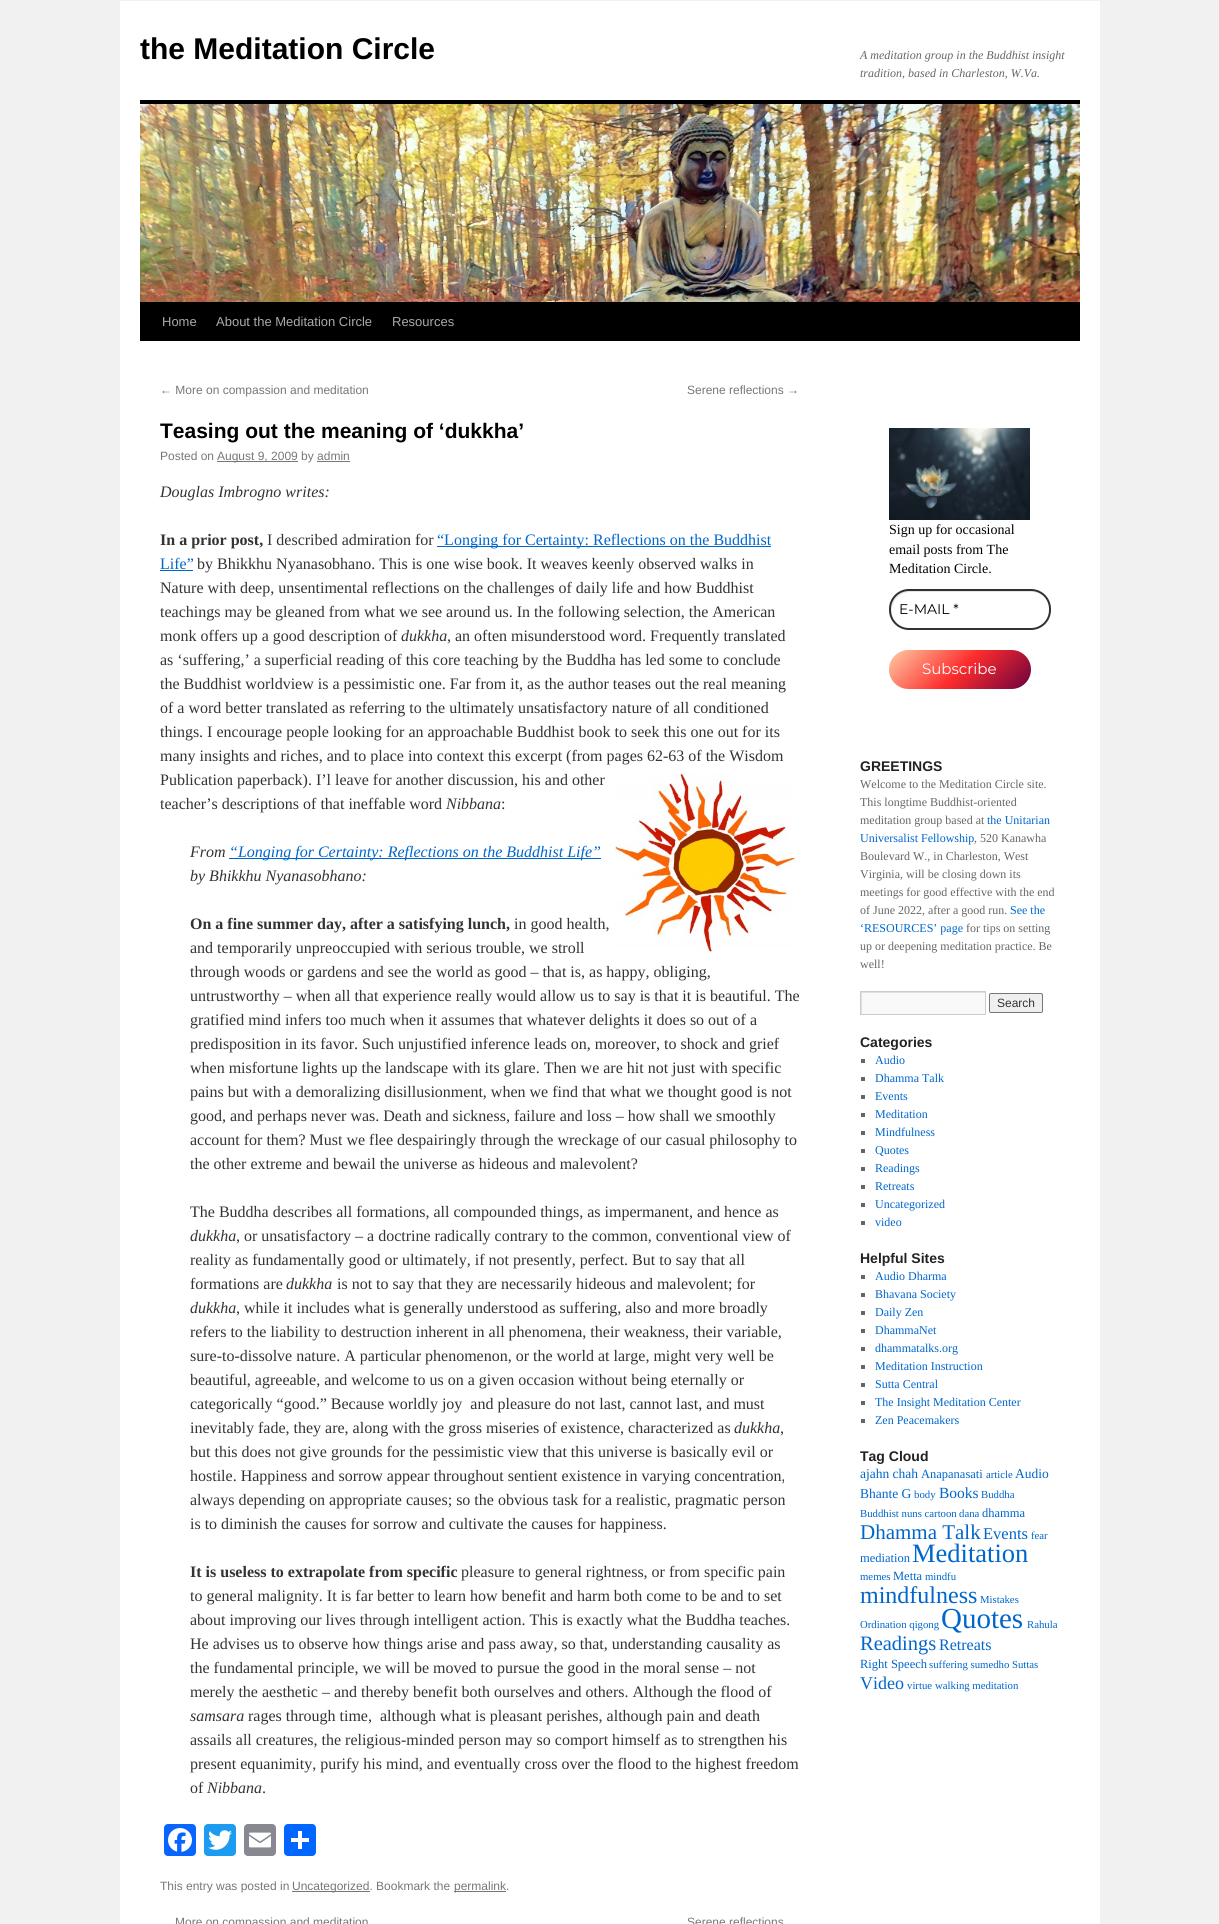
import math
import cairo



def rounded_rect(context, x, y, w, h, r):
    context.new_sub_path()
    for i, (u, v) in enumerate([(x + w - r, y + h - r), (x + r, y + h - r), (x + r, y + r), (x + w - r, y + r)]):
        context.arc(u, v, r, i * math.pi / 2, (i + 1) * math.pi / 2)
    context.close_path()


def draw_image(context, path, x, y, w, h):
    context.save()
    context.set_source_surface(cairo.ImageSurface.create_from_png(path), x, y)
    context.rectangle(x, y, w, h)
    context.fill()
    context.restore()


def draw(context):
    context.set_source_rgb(241 / 255, 241 / 255, 241 / 255)
    context.paint()
    context.set_source_rgb(1, 1, 1)
    context.rectangle(120, 1, 980, 1923)
    context.fill()
    context.set_source_rgb(0, 0, 0)
    context.rectangle(140, 100, 940, 4)
    context.fill()
    context.rectangle(140, 302, 940, 39)
    context.fill()
    draw_image(context, "images/1.png", 140, 104, 940, 198)
    context.set_source_rgb(119 / 255, 119 / 255, 119 / 255)
    context.rectangle(217, 461, 81, 1)
    context.fill()
    context.rectangle(317, 461, 33, 1)
    context.fill()
    context.set_source_rgb(0, 102 / 255, 204 / 255)
    context.rectangle(437, 546, 334, 1)
    context.fill()
    context.rectangle(160, 570, 33, 1)
    context.fill()
    draw_image(context, "images/2.png", 615, 774, 180, 179)
    context.rectangle(229, 858, 372, 1)
    context.fill()
    context.set_source_rgb(8 / 255, 102 / 255, 1)
    rounded_rect(context, 164, 1824, 32, 32, 4)
    context.fill()
    draw_image(context, "images/3.png", 168, 1828, 24, 24)
    context.set_source_rgb(29 / 255, 155 / 255, 240 / 255)
    rounded_rect(context, 204, 1824, 32, 32, 4)
    context.fill()
    draw_image(context, "images/4.png", 208, 1830, 24, 20)
    context.set_source_rgb(136 / 255, 137 / 255, 144 / 255)
    rounded_rect(context, 244, 1824, 32, 32, 4)
    context.fill()
    draw_image(context, "images/5.png", 249, 1832, 22, 16)
    context.set_source_rgb(1 / 255, 102 / 255, 1)
    rounded_rect(context, 284, 1824, 32, 32, 4)
    context.fill()
    context.set_source_rgb(1, 1, 1)
    context.rectangle(298, 1831, 4, 18)
    context.fill()
    context.rectangle(291, 1838, 18, 4)
    context.fill()
    context.set_source_rgb(119 / 255, 119 / 255, 119 / 255)
    context.rectangle(292, 1891, 78, 1)
    context.fill()
    context.rectangle(454, 1891, 52, 1)
    context.fill()
    draw_image(context, "images/6.png", 889, 428, 141, 92)
    context.set_source_rgb(230 / 255, 230 / 255, 230 / 255)
    context.new_path()
    context.move_to(910, 592)
    context.line_to(1032, 592)
    context.curve_to(1037, 592, 1041, 594, 1044, 596)
    context.curve_to(1036, 588, 1021, 591, 1011, 591)
    context.line_to(905, 591)
    context.curve_to(891, 594, 886, 613, 896, 623)
    context.curve_to(886, 612, 894, 592, 910, 592)
    context.close_path()
    context.fill()
    rounded_rect(context, 890, 590, 160, 39, 19)
    context.set_source_rgb(49 / 255, 49 / 255, 49 / 255)
    context.stroke()
    gradient = cairo.LinearGradient(915, 624, 1005, 715)
    gradient.add_color_stop_rgba(0, 254 / 255, 205 / 255, 165 / 255, 1)
    gradient.add_color_stop_rgba(0.5, 254 / 255, 45 / 255, 45 / 255, 1)
    gradient.add_color_stop_rgba(1, 107 / 255, 0, 62 / 255, 1)
    context.set_source(gradient)
    rounded_rect(context, 889, 650, 142, 39, 19.5)
    context.fill()
    context.set_source_rgb(249 / 255, 249 / 255, 249 / 255)
    context.rectangle(862, 993, 123, 21)
    context.fill()
    context.save()
    context.rectangle(861, 992, 124, 22)
    context.clip()
    context.set_source_rgb(224 / 255, 224 / 255, 224 / 255)
    context.set_fill_rule(cairo.FillRule.EVEN_ODD)
    context.new_path()
    context.move_to(762, 893)
    context.line_to(1084, 893)
    context.line_to(1084, 1113)
    context.line_to(762, 1113)
    context.close_path()
    context.move_to(862, 993)
    context.line_to(986, 993)
    context.line_to(986, 1015)
    context.line_to(862, 1015)
    context.close_path()
    context.fill()
    context.restore()
    context.rectangle(860.5, 991.5, 125, 23)
    context.set_source_rgb(204 / 255, 204 / 255, 204 / 255)
    context.set_line_width(1)
    context.stroke()
    context.set_source_rgb(239 / 255, 239 / 255, 239 / 255)
    rounded_rect(context, 989.5, 993.5, 53, 19, 1.5)
    context.fill_preserve()
    context.set_source_rgb(118 / 255, 118 / 255, 118 / 255)
    context.stroke()
    context.set_source_rgb(102 / 255, 102 / 255, 102 / 255)
    context.rectangle(861, 1059, 4, 4)
    context.fill()
    context.rectangle(861, 1077, 4, 4)
    context.fill()
    context.rectangle(861, 1095, 4, 4)
    context.fill()
    context.rectangle(861, 1113, 4, 4)
    context.fill()
    context.rectangle(861, 1131, 4, 4)
    context.fill()
    context.rectangle(861, 1149, 4, 4)
    context.fill()
    context.rectangle(861, 1167, 4, 4)
    context.fill()
    context.rectangle(861, 1185, 4, 4)
    context.fill()
    context.rectangle(861, 1203, 4, 4)
    context.fill()
    context.rectangle(861, 1221, 4, 4)
    context.fill()
    context.rectangle(861, 1275, 4, 4)
    context.fill()
    context.rectangle(861, 1293, 4, 4)
    context.fill()
    context.rectangle(861, 1311, 4, 4)
    context.fill()
    context.rectangle(861, 1329, 4, 4)
    context.fill()
    context.rectangle(861, 1347, 4, 4)
    context.fill()
    context.rectangle(861, 1365, 4, 4)
    context.fill()
    context.rectangle(861, 1383, 4, 4)
    context.fill()
    context.rectangle(861, 1401, 4, 4)
    context.fill()
    context.rectangle(861, 1419, 4, 4)
    context.fill()
    context.select_font_face("Liberation Sans", cairo.FontSlant.NORMAL, cairo.FontWeight.BOLD)
    context.set_font_size(30)
    context.set_source_rgb(0, 0, 0)
    context.move_to(140, 59)
    context.show_text("the Meditation Circle")
    context.select_font_face("Liberation Serif", cairo.FontSlant.ITALIC)
    context.set_font_size(12)
    context.set_source_rgb(102 / 255, 102 / 255, 102 / 255)
    context.move_to(860, 59)
    context.show_text("A meditation group in the Buddhist insight")
    context.move_to(860, 77)
    context.show_text("tradition, based in Charleston, W.Va.")
    context.select_font_face("Liberation Sans")
    context.set_font_size(13)
    context.set_source_rgb(170 / 255, 170 / 255, 170 / 255)
    context.move_to(162, 326)
    context.show_text("Home")
    context.move_to(216, 326)
    context.show_text("About the Meditation Circle")
    context.move_to(392, 326)
    context.show_text("Resources")
    context.set_font_size(12)
    context.set_source_rgb(119 / 255, 119 / 255, 119 / 255)
    context.move_to(160, 394)
    context.show_text("← More on compassion and meditation")
    context.move_to(687, 394)
    context.show_text("Serene reflections →")
    context.select_font_face("Liberation Sans", cairo.FontSlant.NORMAL, cairo.FontWeight.BOLD)
    context.set_font_size(21)
    context.set_source_rgb(0, 0, 0)
    context.move_to(160, 438)
    context.show_text("Teasing out the meaning of ‘dukkha’")
    context.select_font_face("Liberation Sans")
    context.set_font_size(12)
    context.set_source_rgb(119 / 255, 119 / 255, 119 / 255)
    context.move_to(160, 460)
    context.show_text("Posted on")
    context.move_to(217, 460)
    context.show_text("August 9, 2009 by admin")
    context.select_font_face("Liberation Serif", cairo.FontSlant.ITALIC)
    context.set_font_size(16)
    context.set_source_rgb(51 / 255, 51 / 255, 51 / 255)
    context.move_to(160, 497)
    context.show_text("Douglas Imbrogno writes:")
    context.select_font_face("Liberation Serif", cairo.FontSlant.NORMAL, cairo.FontWeight.BOLD)
    context.move_to(160, 545)
    context.show_text("In a prior post,")
    context.select_font_face("Liberation Serif")
    context.move_to(267, 545)
    context.show_text("I described admiration for")
    context.set_source_rgb(0, 102 / 255, 204 / 255)
    context.move_to(437, 545)
    context.show_text("“Longing for Certainty: Reflections on the Buddhist")
    context.move_to(160, 569)
    context.show_text("Life”")
    context.set_source_rgb(51 / 255, 51 / 255, 51 / 255)
    context.move_to(197, 569)
    context.show_text("by Bhikkhu Nyanasobhano. This is one wise book. It weaves keenly observed walks in")
    context.move_to(160, 593)
    context.show_text("Nature with deep, unsentimental reflections on the challenges of daily life and how Buddhist")
    context.move_to(160, 617)
    context.show_text("teachings may be gleaned from what we see around us. In the following selection, the American")
    context.move_to(160, 641)
    context.show_text("monk offers up a good description of")
    context.select_font_face("Liberation Serif", cairo.FontSlant.ITALIC)
    context.move_to(401, 641)
    context.show_text("dukkha")
    context.select_font_face("Liberation Serif")
    context.move_to(447, 641)
    context.show_text(", an often misunderstood word. Frequently translated")
    context.move_to(160, 665)
    context.show_text("as ‘suffering,’ a superficial reading of this core teaching by the Buddha has led some to conclude")
    context.move_to(160, 689)
    context.show_text("the Buddhist worldview is a pessimistic one. Far from it, as the author teases out the real meaning")
    context.move_to(160, 713)
    context.show_text("of a word better translated as referring to the ultimately unsatisfactory nature of all conditioned")
    context.move_to(160, 737)
    context.show_text("things. I encourage people looking for an approachable Buddhist book to seek this one out for its")
    context.move_to(160, 761)
    context.show_text("many insights and riches, and to place into context this excerpt (from pages 62-63 of the Wisdom")
    context.move_to(160, 785)
    context.show_text("Publication paperback). I’l leave for another discussion, his and other")
    context.move_to(160, 809)
    context.show_text("teacher’s descriptions of that ineffable word")
    context.select_font_face("Liberation Serif", cairo.FontSlant.ITALIC)
    context.move_to(446, 809)
    context.show_text("Nibbana")
    context.select_font_face("Liberation Serif")
    context.move_to(501, 809)
    context.show_text(":")
    context.select_font_face("Liberation Serif", cairo.FontSlant.ITALIC)
    context.move_to(190, 857)
    context.show_text("From")
    context.set_source_rgb(0, 102 / 255, 204 / 255)
    context.move_to(229, 857)
    context.show_text("“Longing for Certainty: Reflections on the Buddhist Life”")
    context.set_source_rgb(51 / 255, 51 / 255, 51 / 255)
    context.move_to(190, 881)
    context.show_text("by Bhikkhu Nyanasobhano:")
    context.select_font_face("Liberation Serif", cairo.FontSlant.NORMAL, cairo.FontWeight.BOLD)
    context.move_to(190, 929)
    context.show_text("On a fine summer day, after a satisfying lunch,")
    context.select_font_face("Liberation Serif")
    context.move_to(514, 929)
    context.show_text("in good health,")
    context.move_to(190, 953)
    context.show_text("and temporarily unpreoccupied with serious trouble, we stroll")
    context.move_to(190, 977)
    context.show_text("through woods or gardens and see the world as good – that is, as happy, obliging,")
    context.move_to(190, 1001)
    context.show_text("untrustworthy – when all that experience really would allow us to say is that it is beautiful. The")
    context.move_to(190, 1025)
    context.show_text("gratified mind infers too much when it assumes that whatever delights it does so out of a")
    context.move_to(190, 1049)
    context.show_text("predisposition in its favor. Such unjustified inference leads on, moreover, to shock and grief")
    context.move_to(190, 1073)
    context.show_text("when misfortune lights up the landscape with its glare. Then we are hit not just with specific")
    context.move_to(190, 1097)
    context.show_text("pains but with a demoralizing disillusionment, when we find that what we thought good is not")
    context.move_to(190, 1121)
    context.show_text("good, and perhaps never was. Death and sickness, failure and loss – how shall we smoothly")
    context.move_to(190, 1145)
    context.show_text("account for them? Must we flee despairingly through the wreckage of our casual philosophy to")
    context.move_to(190, 1169)
    context.show_text("the other extreme and bewail the universe as hideous and malevolent?")
    context.move_to(190, 1217)
    context.show_text("The Buddha describes all formations, all compounded things, as impermanent, and hence as")
    context.select_font_face("Liberation Serif", cairo.FontSlant.ITALIC)
    context.move_to(190, 1241)
    context.show_text("dukkha")
    context.select_font_face("Liberation Serif")
    context.move_to(236, 1241)
    context.show_text(", or unsatisfactory – a doctrine radically contrary to the common, conventional view of")
    context.move_to(190, 1265)
    context.show_text("reality as fundamentally good or ultimately, if not presently, perfect. But to say that all")
    context.move_to(190, 1289)
    context.show_text("formations are")
    context.select_font_face("Liberation Serif", cairo.FontSlant.ITALIC)
    context.move_to(286, 1289)
    context.show_text("dukkha")
    context.select_font_face("Liberation Serif")
    context.move_to(337, 1289)
    context.show_text("is not to say that they are necessarily hideous and malevolent; for")
    context.select_font_face("Liberation Serif", cairo.FontSlant.ITALIC)
    context.move_to(190, 1313)
    context.show_text("dukkha")
    context.select_font_face("Liberation Serif")
    context.move_to(236, 1313)
    context.show_text(", while it includes what is generally understood as suffering, also and more broadly")
    context.move_to(190, 1337)
    context.show_text("refers to the liability to destruction inherent in all phenomena, their weakness, their variable,")
    context.move_to(190, 1361)
    context.show_text("sure-to-dissolve nature. A particular phenomenon, or the world at large, might very well be")
    context.move_to(190, 1385)
    context.show_text("beautiful, agreeable, and welcome to us on a given occasion without being eternally or")
    context.move_to(190, 1409)
    context.show_text("categorically “good.” Because worldly joy  and pleasure do not last, cannot last, and must")
    context.move_to(190, 1433)
    context.show_text("inevitably fade, they are, along with the gross miseries of existence, characterized as")
    context.select_font_face("Liberation Serif", cairo.FontSlant.ITALIC)
    context.move_to(734, 1433)
    context.show_text("dukkha")
    context.select_font_face("Liberation Serif")
    context.move_to(780, 1433)
    context.show_text(",")
    context.move_to(190, 1457)
    context.show_text("but this does not give grounds for the pessimistic view that this universe is basically evil or")
    context.move_to(190, 1481)
    context.show_text("hostile. Happiness and sorrow appear throughout sentient existence in varying concentration,")
    context.move_to(190, 1505)
    context.show_text("always depending on appropriate causes; so the obvious task for a realistic, pragmatic person")
    context.move_to(190, 1529)
    context.show_text("is to diminish the causes for sorrow and cultivate the causes for happiness.")
    context.select_font_face("Liberation Serif", cairo.FontSlant.NORMAL, cairo.FontWeight.BOLD)
    context.move_to(190, 1577)
    context.show_text("It is useless to extrapolate from specific")
    context.select_font_face("Liberation Serif")
    context.move_to(461, 1577)
    context.show_text("pleasure to general rightness, or from specific pain")
    context.move_to(190, 1601)
    context.show_text("to general malignity. It is far better to learn how benefit and harm both come to be and to set")
    context.move_to(190, 1625)
    context.show_text("about improving our lives through intelligent action. This is exactly what the Buddha teaches.")
    context.move_to(190, 1649)
    context.show_text("He advises us to observe how things arise and pass away, so that, understanding causality as")
    context.move_to(190, 1673)
    context.show_text("the fundamental principle, we will be moved to pursue the good in the moral sense – not")
    context.move_to(190, 1697)
    context.show_text("merely the aesthetic – and thereby benefit both ourselves and others. Although the flood of")
    context.select_font_face("Liberation Serif", cairo.FontSlant.ITALIC)
    context.move_to(190, 1721)
    context.show_text("samsara")
    context.select_font_face("Liberation Serif")
    context.move_to(248, 1721)
    context.show_text("rages through time,  although what is pleasant perishes, although pain and death")
    context.move_to(190, 1745)
    context.show_text("assails all creatures, the religious-minded person may so comport himself as to strengthen his")
    context.move_to(190, 1769)
    context.show_text("present equanimity, purify his mind, and eventually cross over the flood to the highest freedom")
    context.move_to(190, 1793)
    context.show_text("of")
    context.select_font_face("Liberation Serif", cairo.FontSlant.ITALIC)
    context.move_to(207, 1793)
    context.show_text("Nibbana")
    context.select_font_face("Liberation Serif")
    context.move_to(262, 1793)
    context.show_text(".")
    context.select_font_face("Liberation Sans")
    context.set_font_size(12)
    context.set_source_rgb(119 / 255, 119 / 255, 119 / 255)
    context.move_to(160, 1890)
    context.show_text("This entry was posted in")
    context.move_to(292, 1890)
    context.show_text("Uncategorized. Bookmark the")
    context.move_to(454, 1890)
    context.show_text("permalink.")
    context.move_to(175, 1926)
    context.show_text("More on compassion and meditation")
    context.move_to(687, 1926)
    context.show_text("Serene reflections")
    context.select_font_face("Liberation Serif")
    context.set_font_size(14)
    context.set_source_rgb(0, 0, 0)
    context.move_to(889, 534)
    context.show_text("Sign up for occasional")
    context.move_to(889, 554)
    context.show_text("email posts from The")
    context.move_to(889, 573)
    context.show_text("Meditation Circle.")
    context.select_font_face("Montserrat")
    context.move_to(899, 614)
    context.show_text("E-MAIL *")
    context.set_font_size(15)
    context.set_source_rgb(1, 1, 1)
    context.move_to(922, 674)
    context.show_text("Subscribe")
    context.select_font_face("Liberation Sans", cairo.FontSlant.NORMAL, cairo.FontWeight.BOLD)
    context.set_font_size(14)
    context.set_source_rgb(34 / 255, 34 / 255, 34 / 255)
    context.move_to(860, 771)
    context.show_text("GREETINGS")
    context.select_font_face("Liberation Serif")
    context.set_font_size(12)
    context.set_source_rgb(102 / 255, 102 / 255, 102 / 255)
    context.move_to(860, 788)
    context.show_text("Welcome to the Meditation Circle site.")
    context.move_to(860, 806)
    context.show_text("This longtime Buddhist-oriented")
    context.move_to(860, 824)
    context.show_text("meditation group based at")
    context.set_source_rgb(0, 102 / 255, 204 / 255)
    context.move_to(987, 824)
    context.show_text("the Unitarian")
    context.move_to(860, 842)
    context.show_text("Universalist Fellowship")
    context.set_source_rgb(102 / 255, 102 / 255, 102 / 255)
    context.move_to(974, 842)
    context.show_text(", 520 Kanawha")
    context.move_to(860, 860)
    context.show_text("Boulevard W., in Charleston, West")
    context.move_to(860, 878)
    context.show_text("Virginia, will be closing down its")
    context.move_to(860, 896)
    context.show_text("meetings for good effective with the end")
    context.move_to(860, 914)
    context.show_text("of June 2022, after a good run.")
    context.set_source_rgb(0, 102 / 255, 204 / 255)
    context.move_to(1010, 914)
    context.show_text("See the")
    context.move_to(860, 932)
    context.show_text("‘RESOURCES’ page")
    context.set_source_rgb(102 / 255, 102 / 255, 102 / 255)
    context.move_to(966, 932)
    context.show_text("for tips on setting")
    context.move_to(860, 950)
    context.show_text("up or deepening meditation practice. Be")
    context.move_to(860, 968)
    context.show_text("well!")
    context.select_font_face("Liberation Sans")
    context.set_source_rgb(51 / 255, 51 / 255, 51 / 255)
    context.move_to(997, 1007)
    context.show_text("Search")
    context.select_font_face("Liberation Sans", cairo.FontSlant.NORMAL, cairo.FontWeight.BOLD)
    context.set_font_size(14)
    context.set_source_rgb(34 / 255, 34 / 255, 34 / 255)
    context.move_to(860, 1047)
    context.show_text("Categories")
    context.select_font_face("Liberation Serif")
    context.set_font_size(12)
    context.set_source_rgb(0, 102 / 255, 204 / 255)
    context.move_to(875, 1064)
    context.show_text("Audio")
    context.move_to(875, 1082)
    context.show_text("Dhamma Talk")
    context.move_to(875, 1100)
    context.show_text("Events")
    context.move_to(875, 1118)
    context.show_text("Meditation")
    context.move_to(875, 1136)
    context.show_text("Mindfulness")
    context.move_to(875, 1154)
    context.show_text("Quotes")
    context.move_to(875, 1172)
    context.show_text("Readings")
    context.move_to(875, 1190)
    context.show_text("Retreats")
    context.move_to(875, 1208)
    context.show_text("Uncategorized")
    context.move_to(875, 1226)
    context.show_text("video")
    context.select_font_face("Liberation Sans", cairo.FontSlant.NORMAL, cairo.FontWeight.BOLD)
    context.set_font_size(14)
    context.set_source_rgb(34 / 255, 34 / 255, 34 / 255)
    context.move_to(860, 1263)
    context.show_text("Helpful Sites")
    context.select_font_face("Liberation Serif")
    context.set_font_size(12)
    context.set_source_rgb(0, 102 / 255, 204 / 255)
    context.move_to(875, 1280)
    context.show_text("Audio Dharma")
    context.move_to(875, 1298)
    context.show_text("Bhavana Society")
    context.move_to(875, 1316)
    context.show_text("Daily Zen")
    context.move_to(875, 1334)
    context.show_text("DhammaNet")
    context.move_to(875, 1352)
    context.show_text("dhammatalks.org")
    context.move_to(875, 1370)
    context.show_text("Meditation Instruction")
    context.move_to(875, 1388)
    context.show_text("Sutta Central")
    context.move_to(875, 1406)
    context.show_text("The Insight Meditation Center")
    context.move_to(875, 1424)
    context.show_text("Zen Peacemakers")
    context.select_font_face("Liberation Sans", cairo.FontSlant.NORMAL, cairo.FontWeight.BOLD)
    context.set_font_size(14)
    context.set_source_rgb(34 / 255, 34 / 255, 34 / 255)
    context.move_to(860, 1461)
    context.show_text("Tag Cloud")
    context.select_font_face("Liberation Serif")
    context.set_font_size(13.5)
    context.set_source_rgb(0, 102 / 255, 204 / 255)
    context.move_to(860, 1478)
    context.show_text("ajahn chah")
    context.set_font_size(12.5)
    context.move_to(921, 1478)
    context.show_text("Anapanasati")
    context.set_font_size(10.75)
    context.move_to(986, 1478)
    context.show_text("article")
    context.set_font_size(13.5)
    context.move_to(1015, 1478)
    context.show_text("Audio")
    context.move_to(860, 1498)
    context.show_text("Bhante G")
    context.set_font_size(10.75)
    context.move_to(914, 1498)
    context.show_text("body")
    context.set_font_size(15.5)
    context.move_to(939, 1498)
    context.show_text("Books")
    context.set_font_size(10.75)
    context.move_to(981, 1498)
    context.show_text("Buddha")
    context.move_to(860, 1517)
    context.show_text("Buddhist nuns cartoon")
    context.move_to(959, 1517)
    context.show_text("dana")
    context.set_font_size(12.5)
    context.move_to(982, 1517)
    context.show_text("dhamma")
    context.set_font_size(21)
    context.move_to(860, 1539)
    context.show_text("Dhamma Talk")
    context.set_font_size(16.5)
    context.move_to(983, 1539)
    context.show_text("Events")
    context.set_font_size(10.75)
    context.move_to(1031, 1539)
    context.show_text("fear")
    context.set_font_size(12.5)
    context.move_to(860, 1562)
    context.show_text("mediation")
    context.set_font_size(26.5)
    context.move_to(912, 1562)
    context.show_text("Meditation")
    context.set_font_size(10.75)
    context.move_to(860, 1580)
    context.show_text("memes")
    context.set_font_size(12.5)
    context.move_to(893, 1580)
    context.show_text("Metta")
    context.set_font_size(10.75)
    context.move_to(925, 1580)
    context.show_text("mindfu")
    context.set_font_size(24)
    context.move_to(860, 1603)
    context.show_text("mindfulness")
    context.set_font_size(10.75)
    context.move_to(980, 1603)
    context.show_text("Mistakes")
    context.move_to(860, 1628)
    context.show_text("Ordination qigong")
    context.set_font_size(29)
    context.move_to(941, 1628)
    context.show_text("Quotes")
    context.set_font_size(10.75)
    context.move_to(1027, 1628)
    context.show_text("Rahula")
    context.set_font_size(20.5)
    context.move_to(860, 1650)
    context.show_text("Readings")
    context.set_font_size(16)
    context.move_to(939, 1650)
    context.show_text("Retreats")
    context.set_font_size(12.5)
    context.move_to(860, 1668)
    context.show_text("Right Speech")
    context.set_font_size(10.75)
    context.move_to(929, 1668)
    context.show_text("suffering sumedho")
    context.move_to(1012, 1668)
    context.show_text("Suttas")
    context.set_font_size(18)
    context.move_to(860, 1689)
    context.show_text("Video")
    context.set_font_size(10.75)
    context.move_to(907, 1689)
    context.show_text("virtue")
    context.move_to(935, 1689)
    context.show_text("walking meditation")


surface = cairo.ImageSurface(cairo.Format.RGB24, 1219, 1924)
context = cairo.Context(surface)
options = cairo.FontOptions()
options.set_hint_metrics(cairo.HintMetrics.OFF)
options.set_hint_style(cairo.HintStyle.NONE)
context.set_font_options(options)
context.set_miter_limit(4)
draw(context)
surface.write_to_png("out.png")
